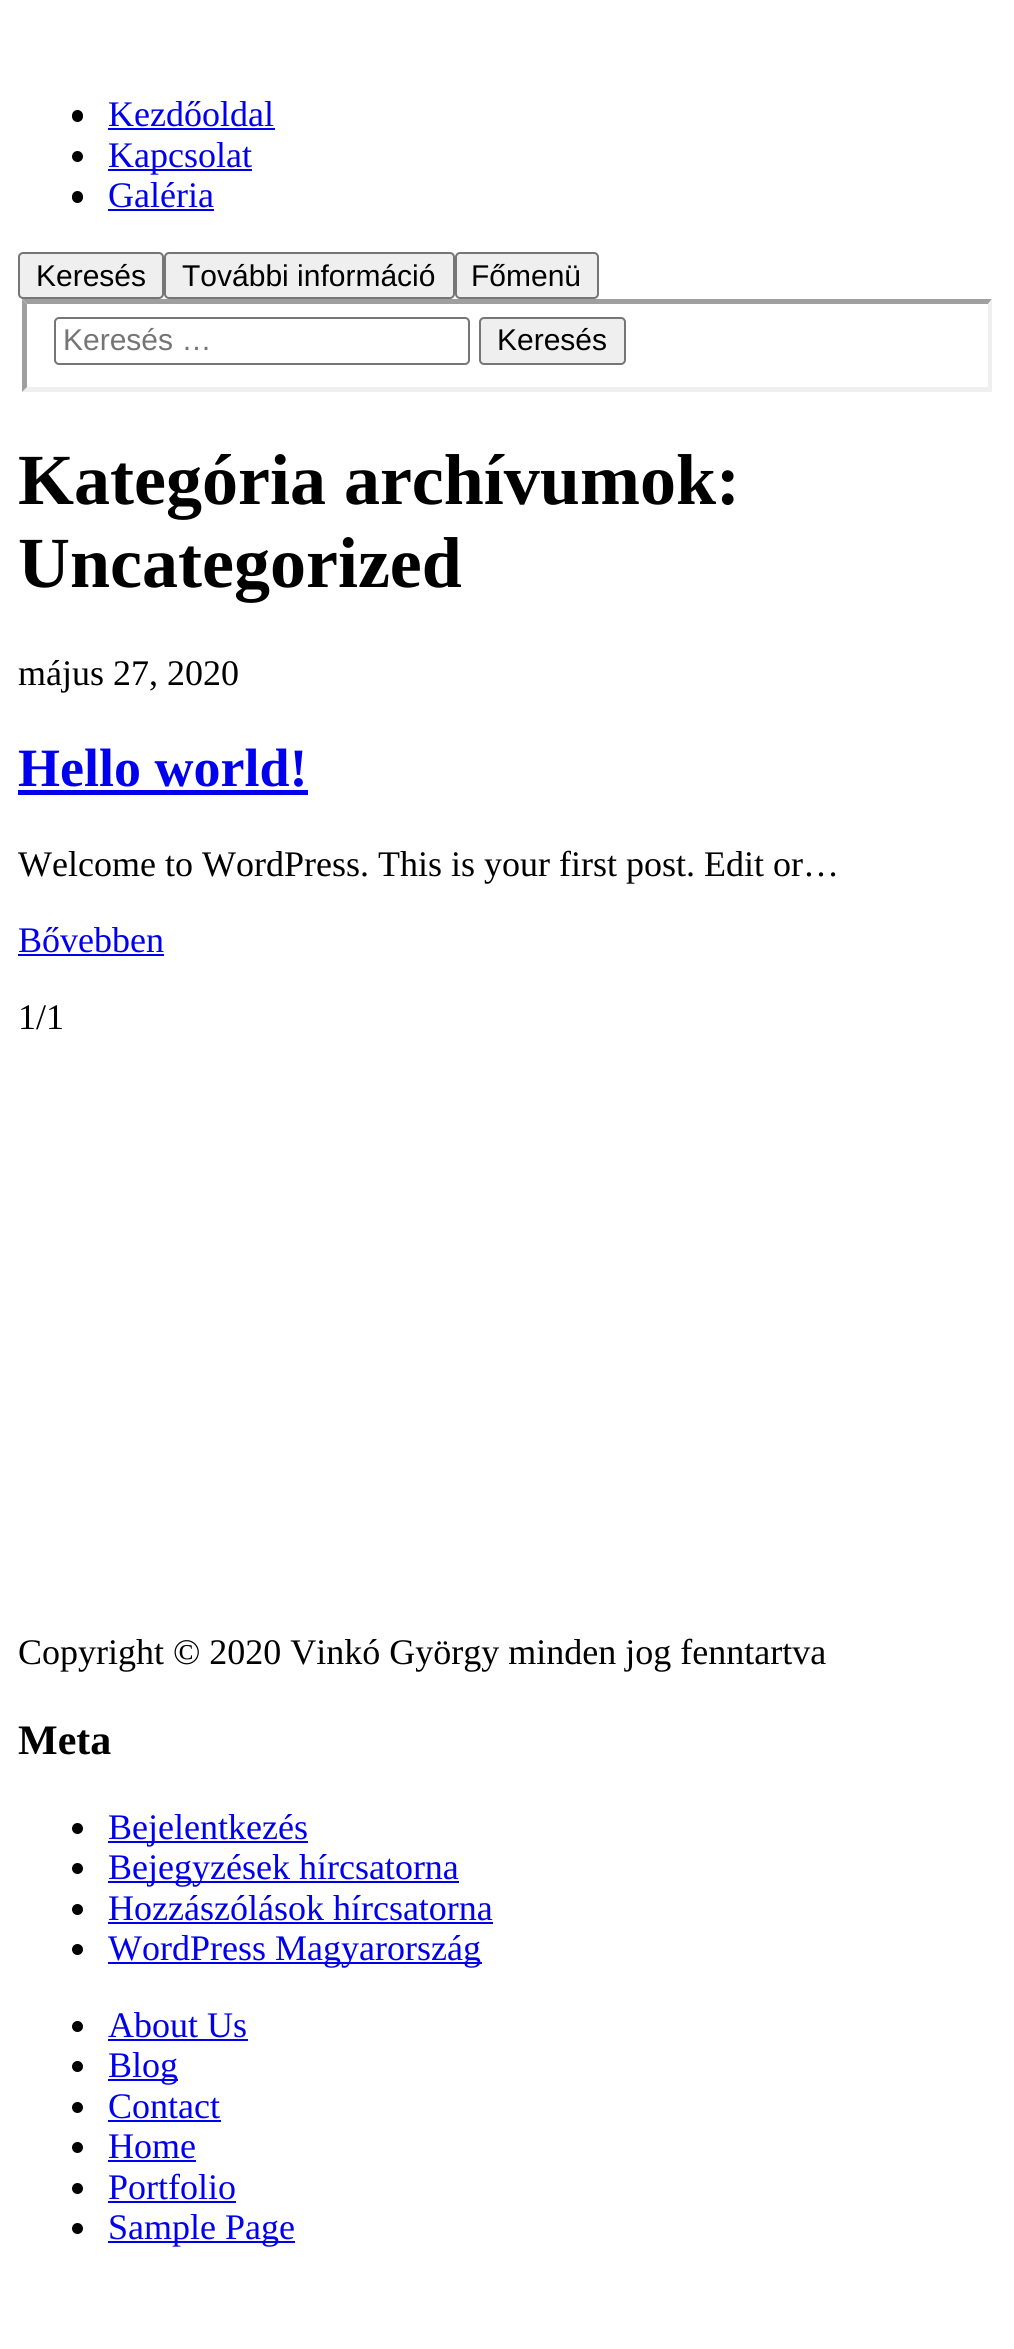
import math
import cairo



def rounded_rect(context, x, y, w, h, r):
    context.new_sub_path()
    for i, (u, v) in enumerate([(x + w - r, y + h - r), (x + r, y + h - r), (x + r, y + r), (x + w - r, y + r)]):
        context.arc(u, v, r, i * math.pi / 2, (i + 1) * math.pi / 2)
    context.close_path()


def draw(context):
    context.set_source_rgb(1, 1, 1)
    context.paint()
    context.set_source_rgb(0, 0, 0)
    rounded_rect(context, 72, 110, 11, 12, 5.5)
    context.fill()
    context.set_source_rgb(0, 0, 238 / 255)
    context.rectangle(108, 128, 167, 2)
    context.fill()
    context.set_source_rgb(0, 0, 0)
    context.arc(77.5, 156.5, 5.5, 0, 2 * math.pi)
    context.fill()
    context.set_source_rgb(0, 0, 238 / 255)
    context.rectangle(108, 169, 144, 2)
    context.fill()
    context.set_source_rgb(0, 0, 0)
    rounded_rect(context, 72, 191, 11, 12, 5.5)
    context.fill()
    context.set_source_rgb(0, 0, 238 / 255)
    context.rectangle(108, 209, 106, 2)
    context.fill()
    context.set_source_rgb(239 / 255, 239 / 255, 239 / 255)
    rounded_rect(context, 19, 253, 144, 45, 4)
    context.fill_preserve()
    context.set_source_rgb(118 / 255, 118 / 255, 118 / 255)
    context.stroke()
    context.set_source_rgb(239 / 255, 239 / 255, 239 / 255)
    rounded_rect(context, 165, 253, 289, 45, 4)
    context.fill_preserve()
    context.set_source_rgb(118 / 255, 118 / 255, 118 / 255)
    context.stroke()
    context.set_source_rgb(239 / 255, 239 / 255, 239 / 255)
    rounded_rect(context, 456, 253, 142, 45, 4)
    context.fill_preserve()
    context.set_source_rgb(118 / 255, 118 / 255, 118 / 255)
    context.stroke()
    context.set_source_rgb(159 / 255, 159 / 255, 159 / 255)
    context.new_path()
    context.move_to(22, 299)
    context.line_to(992, 299)
    context.line_to(988, 304)
    context.line_to(27, 304)
    context.close_path()
    context.fill()
    context.set_source_rgb(239 / 255, 239 / 255, 239 / 255)
    context.new_path()
    context.move_to(992, 299)
    context.line_to(992, 392)
    context.line_to(988, 387)
    context.line_to(988, 304)
    context.close_path()
    context.fill()
    context.new_path()
    context.move_to(992, 392)
    context.line_to(22, 392)
    context.line_to(27, 387)
    context.line_to(988, 387)
    context.close_path()
    context.fill()
    context.set_source_rgb(159 / 255, 159 / 255, 159 / 255)
    context.new_path()
    context.move_to(22, 392)
    context.line_to(22, 299)
    context.line_to(27, 304)
    context.line_to(27, 387)
    context.close_path()
    context.fill()
    rounded_rect(context, 55, 318, 414, 46, 4)
    context.set_source_rgb(118 / 255, 118 / 255, 118 / 255)
    context.stroke()
    context.set_source_rgb(239 / 255, 239 / 255, 239 / 255)
    rounded_rect(context, 480, 318, 145, 46, 4)
    context.fill_preserve()
    context.set_source_rgb(118 / 255, 118 / 255, 118 / 255)
    context.stroke()
    context.set_source_rgb(0, 0, 238 / 255)
    context.rectangle(18, 790, 290, 5)
    context.fill()
    context.rectangle(18, 954, 146, 2)
    context.fill()
    context.set_source_rgb(0, 0, 0)
    context.arc(77.5, 1828.5, 5.5, 0, 2 * math.pi)
    context.fill()
    context.set_source_rgb(0, 0, 238 / 255)
    context.rectangle(108, 1841, 200, 2)
    context.fill()
    context.set_source_rgb(0, 0, 0)
    context.arc(77.5, 1868.5, 5.5, 0, 2 * math.pi)
    context.fill()
    context.set_source_rgb(0, 0, 238 / 255)
    context.rectangle(108, 1881, 351, 2)
    context.fill()
    context.set_source_rgb(0, 0, 0)
    context.arc(77.5, 1909.5, 5.5, 0, 2 * math.pi)
    context.fill()
    context.set_source_rgb(0, 0, 238 / 255)
    context.rectangle(108, 1922, 385, 2)
    context.fill()
    context.set_source_rgb(0, 0, 0)
    context.arc(77.5, 1949.5, 5.5, 0, 2 * math.pi)
    context.fill()
    context.set_source_rgb(0, 0, 238 / 255)
    context.rectangle(108, 1962, 374, 2)
    context.fill()
    context.set_source_rgb(0, 0, 0)
    context.arc(77.5, 2026.5, 5.5, 0, 2 * math.pi)
    context.fill()
    context.set_source_rgb(0, 0, 238 / 255)
    context.rectangle(108, 2039, 140, 2)
    context.fill()
    context.set_source_rgb(0, 0, 0)
    context.arc(77.5, 2066.5, 5.5, 0, 2 * math.pi)
    context.fill()
    context.set_source_rgb(0, 0, 238 / 255)
    context.rectangle(108, 2079, 70, 2)
    context.fill()
    context.set_source_rgb(0, 0, 0)
    context.arc(77.5, 2107.5, 5.5, 0, 2 * math.pi)
    context.fill()
    context.set_source_rgb(0, 0, 238 / 255)
    context.rectangle(108, 2120, 113, 2)
    context.fill()
    context.set_source_rgb(0, 0, 0)
    context.arc(77.5, 2147.5, 5.5, 0, 2 * math.pi)
    context.fill()
    context.set_source_rgb(0, 0, 238 / 255)
    context.rectangle(108, 2160, 88, 2)
    context.fill()
    context.set_source_rgb(0, 0, 0)
    context.arc(77.5, 2188.5, 5.5, 0, 2 * math.pi)
    context.fill()
    context.set_source_rgb(0, 0, 238 / 255)
    context.rectangle(108, 2201, 128, 2)
    context.fill()
    context.set_source_rgb(0, 0, 0)
    context.arc(77.5, 2228.5, 5.5, 0, 2 * math.pi)
    context.fill()
    context.set_source_rgb(0, 0, 238 / 255)
    context.rectangle(108, 2241, 187, 2)
    context.fill()
    context.select_font_face("Liberation Serif")
    context.set_font_size(36)
    context.move_to(108, 126)
    context.show_text("Kezdőoldal")
    context.move_to(108, 167)
    context.show_text("Kapcsolat")
    context.move_to(108, 207)
    context.show_text("Galéria")
    context.select_font_face("Liberation Sans")
    context.set_font_size(30)
    context.set_source_rgb(0, 0, 0)
    context.move_to(36, 286)
    context.show_text("Keresés")
    context.move_to(182, 286)
    context.show_text("További információ")
    context.move_to(471, 286)
    context.show_text("Főmenü")
    context.set_source_rgb(117 / 255, 117 / 255, 117 / 255)
    context.move_to(63, 350)
    context.show_text("Keresés …")
    context.set_source_rgb(0, 0, 0)
    context.move_to(497, 350)
    context.show_text("Keresés")
    context.select_font_face("Liberation Serif", cairo.FontSlant.NORMAL, cairo.FontWeight.BOLD)
    context.set_font_size(72)
    context.move_to(18, 504)
    context.show_text("Kategória archívumok:")
    context.move_to(18, 587)
    context.show_text("Uncategorized")
    context.select_font_face("Liberation Serif")
    context.set_font_size(36)
    context.move_to(18, 685)
    context.show_text("május 27, 2020")
    context.select_font_face("Liberation Serif", cairo.FontSlant.NORMAL, cairo.FontWeight.BOLD)
    context.set_font_size(54)
    context.set_source_rgb(0, 0, 238 / 255)
    context.move_to(18, 786)
    context.show_text("Hello world!")
    context.select_font_face("Liberation Serif")
    context.set_font_size(36)
    context.set_source_rgb(0, 0, 0)
    context.move_to(18, 876)
    context.show_text("Welcome to WordPress. This is your first post. Edit or…")
    context.set_source_rgb(0, 0, 238 / 255)
    context.move_to(18, 952)
    context.show_text("Bővebben")
    context.set_source_rgb(0, 0, 0)
    context.move_to(18, 1029)
    context.show_text("1/1")
    context.move_to(18, 1664)
    context.show_text("Copyright © 2020 Vinkó György minden jog fenntartva")
    context.select_font_face("Liberation Serif", cairo.FontSlant.NORMAL, cairo.FontWeight.BOLD)
    context.set_font_size(42)
    context.move_to(18, 1754)
    context.show_text("Meta")
    context.select_font_face("Liberation Serif")
    context.set_font_size(36)
    context.set_source_rgb(0, 0, 238 / 255)
    context.move_to(108, 1839)
    context.show_text("Bejelentkezés")
    context.move_to(108, 1879)
    context.show_text("Bejegyzések hírcsatorna")
    context.move_to(108, 1920)
    context.show_text("Hozzászólások hírcsatorna")
    context.move_to(108, 1960)
    context.show_text("WordPress Magyarország")
    context.move_to(108, 2037)
    context.show_text("About Us")
    context.move_to(108, 2077)
    context.show_text("Blog")
    context.move_to(108, 2118)
    context.show_text("Contact")
    context.move_to(108, 2158)
    context.show_text("Home")
    context.move_to(108, 2199)
    context.show_text("Portfolio")
    context.move_to(108, 2239)
    context.show_text("Sample Page")


surface = cairo.ImageSurface(cairo.Format.RGB24, 1014, 2349)
context = cairo.Context(surface)
options = cairo.FontOptions()
options.set_hint_metrics(cairo.HintMetrics.OFF)
options.set_hint_style(cairo.HintStyle.NONE)
context.set_font_options(options)
context.set_miter_limit(4)
draw(context)
surface.write_to_png("out.png")
